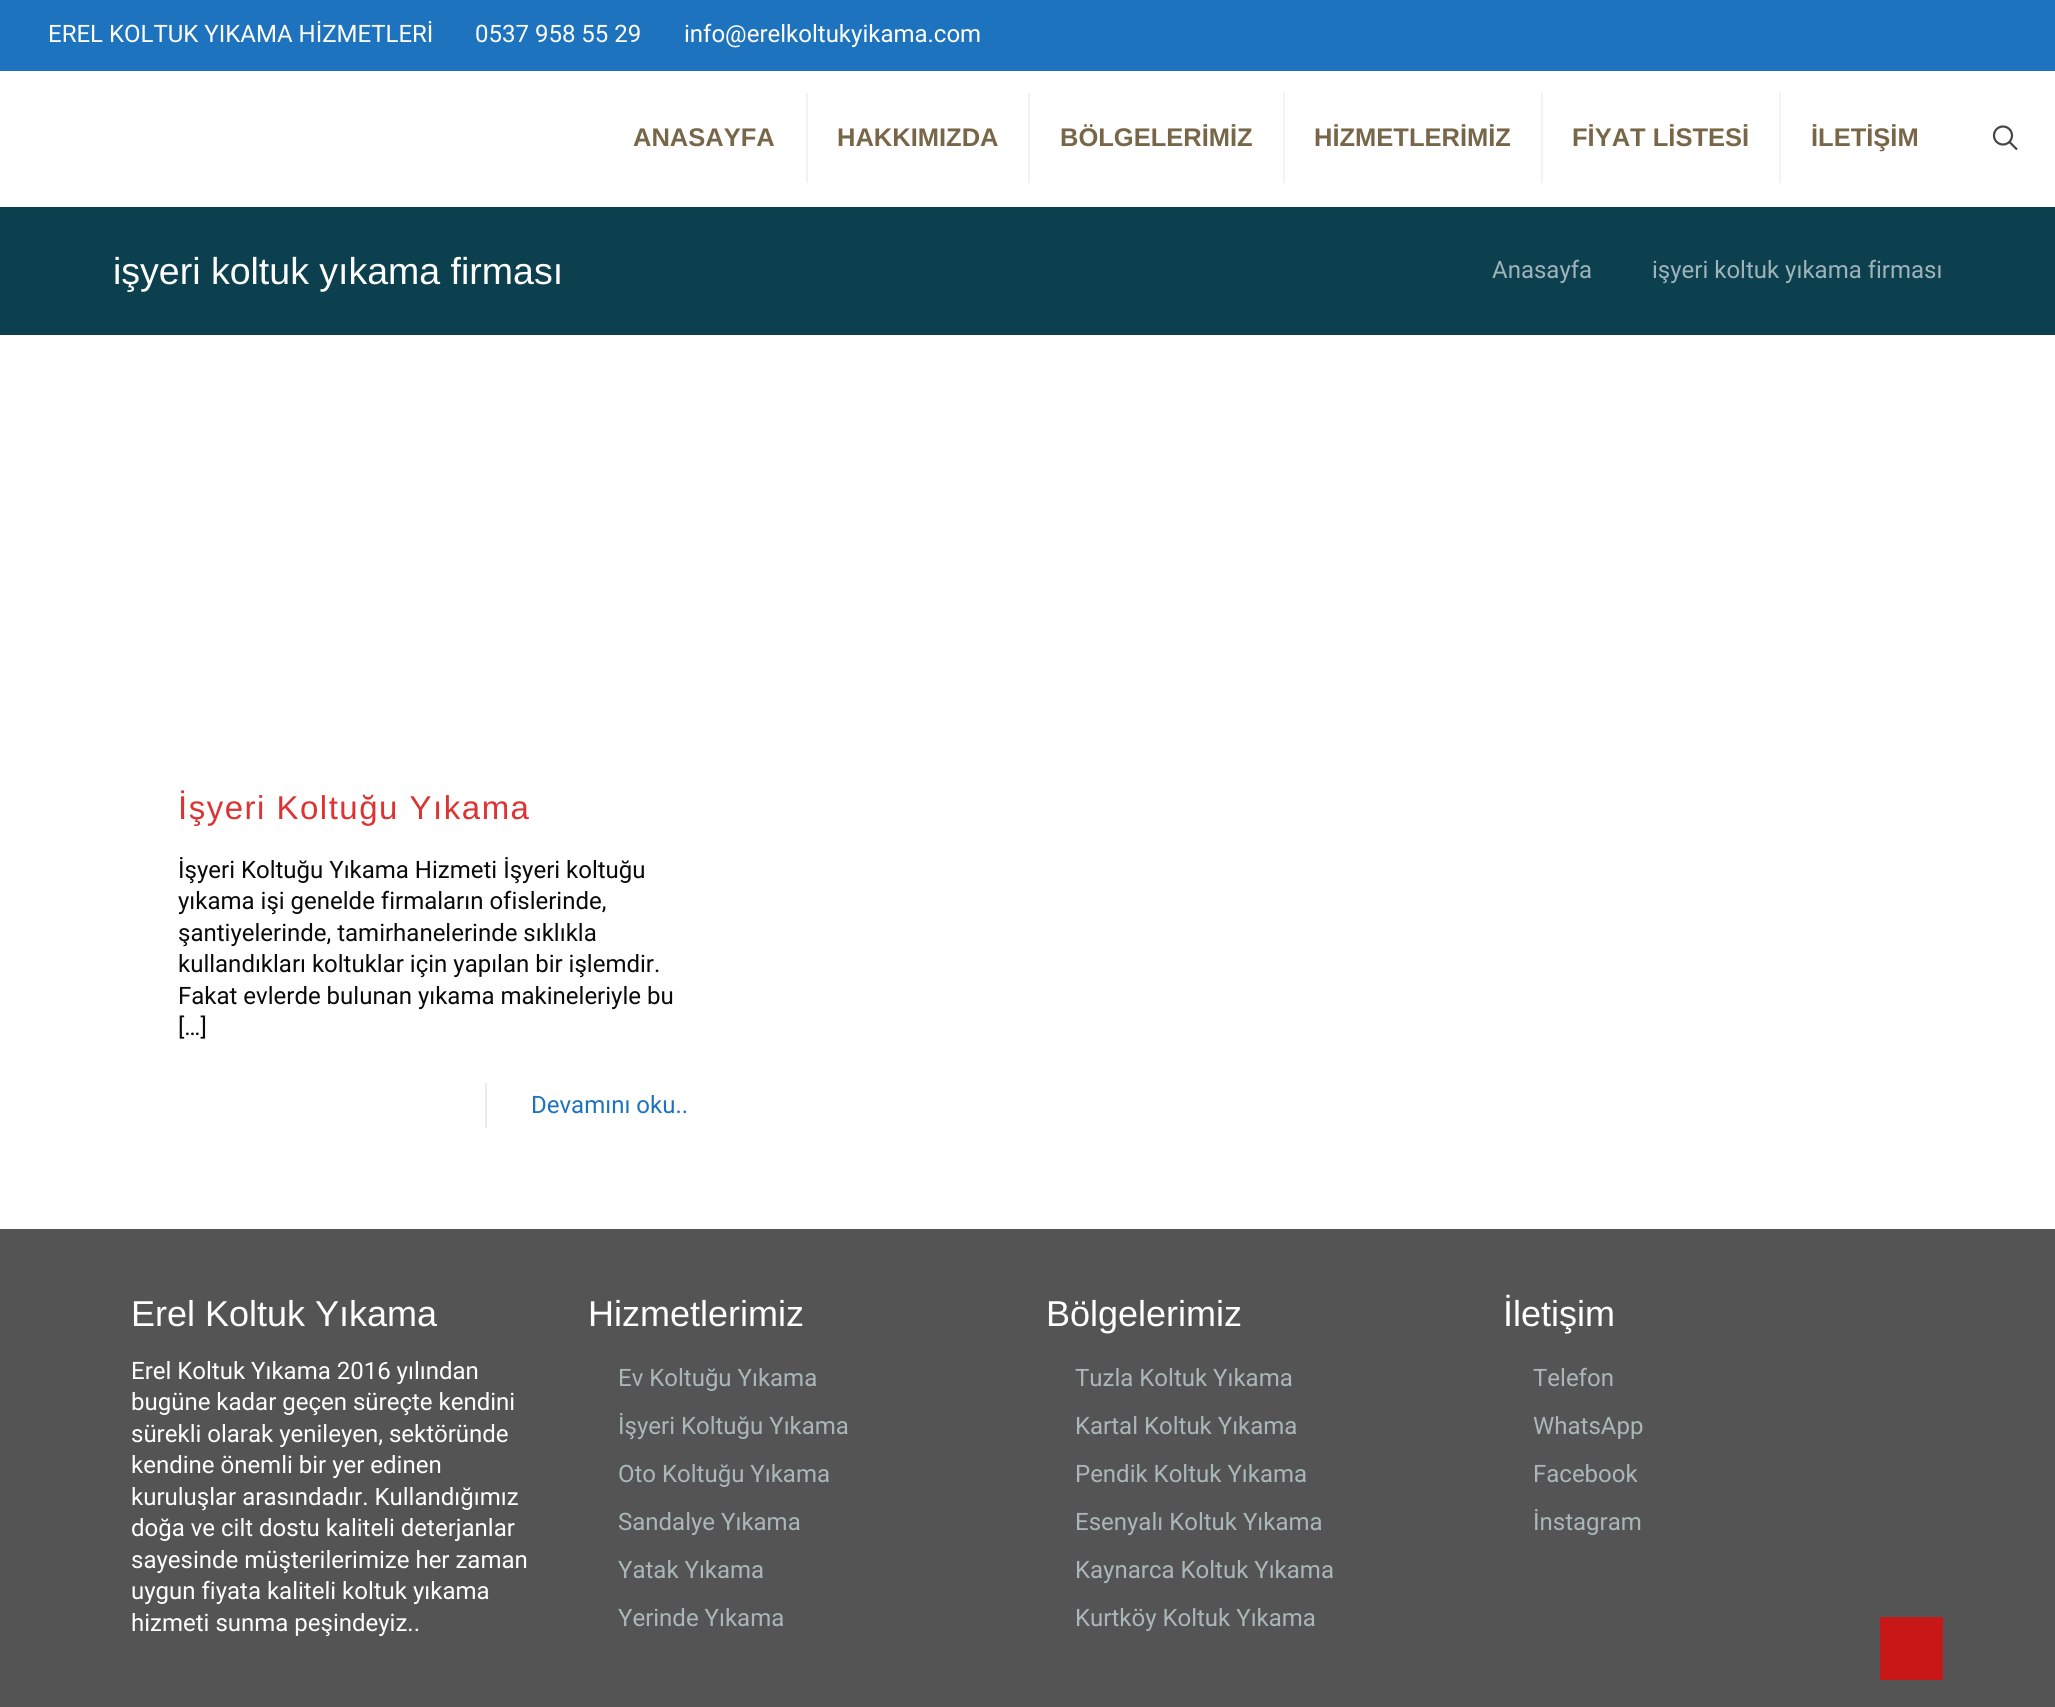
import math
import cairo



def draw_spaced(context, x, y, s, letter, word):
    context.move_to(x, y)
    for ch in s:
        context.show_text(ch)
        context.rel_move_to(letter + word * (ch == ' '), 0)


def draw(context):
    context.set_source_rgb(1, 1, 1)
    context.paint()
    context.set_source_rgb(30 / 255, 115 / 255, 190 / 255)
    context.rectangle(0, 0, 2055, 71)
    context.fill()
    context.set_source_rgb(242 / 255, 242 / 255, 242 / 255)
    context.rectangle(806, 93, 2, 90)
    context.fill()
    context.rectangle(1028, 93, 2, 90)
    context.fill()
    context.rectangle(1283, 93, 2, 90)
    context.fill()
    context.rectangle(1541, 93, 2, 90)
    context.fill()
    context.rectangle(1779, 93, 2, 90)
    context.fill()
    context.arc(2003, 135.5, 9, 0, 2 * math.pi)
    context.set_source_rgb(68 / 255, 68 / 255, 68 / 255)
    context.set_line_width(2.2)
    context.stroke()
    context.new_path()
    context.move_to(2009.5, 142)
    context.line_to(2017, 149.5)
    context.stroke()
    context.set_source_rgb(13 / 255, 64 / 255, 79 / 255)
    context.rectangle(0, 207, 2055, 128)
    context.fill()
    context.set_source_rgb(235 / 255, 235 / 255, 235 / 255)
    context.rectangle(485, 1083, 2, 45)
    context.fill()
    context.set_source_rgb(84 / 255, 84 / 255, 84 / 255)
    context.rectangle(0, 1229, 2055, 478)
    context.fill()
    context.set_source_rgb(200 / 255, 23 / 255, 23 / 255)
    context.rectangle(1880, 1617, 63, 63)
    context.fill()
    context.select_font_face("Roboto")
    context.set_font_size(24)
    context.set_source_rgb(1, 1, 1)
    context.move_to(48, 42)
    context.show_text("EREL KOLTUK YIKAMA HİZMETLERİ")
    context.move_to(475, 42)
    context.show_text("0537 958 55 29")
    context.move_to(684, 42)
    context.show_text("info@erelkoltukyikama.com")
    context.select_font_face("Liberation Sans", cairo.FontSlant.NORMAL, cairo.FontWeight.BOLD)
    context.set_font_size(25.5)
    context.set_source_rgb(120 / 255, 102 / 255, 73 / 255)
    context.move_to(633, 146)
    context.show_text("ANASAYFA")
    context.move_to(837, 146)
    context.show_text("HAKKIMIZDA")
    context.move_to(1060, 146)
    context.show_text("BÖLGELERİMİZ")
    context.move_to(1314, 146)
    context.show_text("HİZMETLERİMİZ")
    context.move_to(1572, 146)
    context.show_text("FİYAT LİSTESİ")
    context.move_to(1811, 146)
    context.show_text("İLETİŞİM")
    context.select_font_face("Liberation Sans")
    context.set_font_size(37.5)
    context.set_source_rgb(1, 1, 1)
    context.move_to(113, 284)
    context.show_text("işyeri koltuk yıkama firması")
    context.select_font_face("Roboto")
    context.set_font_size(24)
    context.set_source_rgb(158 / 255, 179 / 255, 185 / 255)
    context.move_to(1492, 278)
    context.show_text("Anasayfa")
    context.move_to(1652, 278)
    context.show_text("işyeri koltuk yıkama firması")
    context.select_font_face("Liberation Sans")
    context.set_font_size(33)
    context.set_source_rgb(221 / 255, 51 / 255, 51 / 255)
    draw_spaced(context, 178, 819, "İşyeri Koltuğu Yıkama", 1.5, 0)
    context.select_font_face("Roboto")
    context.set_font_size(24)
    context.set_source_rgb(10 / 255, 10 / 255, 10 / 255)
    context.move_to(178, 878)
    context.show_text("İşyeri Koltuğu Yıkama Hizmeti İşyeri koltuğu")
    context.move_to(178, 909)
    context.show_text("yıkama işi genelde firmaların ofislerinde,")
    context.move_to(178, 941)
    context.show_text("şantiyelerinde, tamirhanelerinde sıklıkla")
    context.move_to(178, 972)
    context.show_text("kullandıkları koltuklar için yapılan bir işlemdir.")
    context.move_to(178, 1004)
    context.show_text("Fakat evlerde bulunan yıkama makineleriyle bu")
    context.move_to(178, 1035)
    context.show_text("[…]")
    context.set_source_rgb(30 / 255, 115 / 255, 190 / 255)
    context.move_to(531, 1113)
    context.show_text("Devamını oku..")
    context.select_font_face("Liberation Sans")
    context.set_font_size(36)
    context.set_source_rgb(1, 1, 1)
    context.move_to(131, 1326)
    context.show_text("Erel Koltuk Yıkama")
    context.select_font_face("Roboto")
    context.set_font_size(24)
    context.move_to(131, 1379)
    context.show_text("Erel Koltuk Yıkama 2016 yılından")
    context.move_to(131, 1410)
    context.show_text("bugüne kadar geçen süreçte kendini")
    context.move_to(131, 1442)
    context.show_text("sürekli olarak yenileyen, sektöründe")
    context.move_to(131, 1473)
    context.show_text("kendine önemli bir yer edinen")
    context.move_to(131, 1505)
    context.show_text("kuruluşlar arasındadır. Kullandığımız")
    context.move_to(131, 1536)
    context.show_text("doğa ve cilt dostu kaliteli deterjanlar")
    context.move_to(131, 1568)
    context.show_text("sayesinde müşterilerimize her zaman")
    context.move_to(131, 1599)
    context.show_text("uygun fiyata kaliteli koltuk yıkama")
    context.move_to(131, 1631)
    context.show_text("hizmeti sunma peşindeyiz..")
    context.select_font_face("Liberation Sans")
    context.set_font_size(36)
    context.move_to(588, 1326)
    context.show_text("Hizmetlerimiz")
    context.select_font_face("Roboto")
    context.set_font_size(24)
    context.set_source_rgb(171 / 255, 183 / 255, 183 / 255)
    context.move_to(618, 1386)
    context.show_text("Ev Koltuğu Yıkama")
    context.move_to(618, 1434)
    context.show_text("İşyeri Koltuğu Yıkama")
    context.move_to(618, 1482)
    context.show_text("Oto Koltuğu Yıkama")
    context.move_to(618, 1530)
    context.show_text("Sandalye Yıkama")
    context.move_to(618, 1578)
    context.show_text("Yatak Yıkama")
    context.move_to(618, 1626)
    context.show_text("Yerinde Yıkama")
    context.select_font_face("Liberation Sans")
    context.set_font_size(36)
    context.set_source_rgb(1, 1, 1)
    context.move_to(1046, 1326)
    context.show_text("Bölgelerimiz")
    context.select_font_face("Roboto")
    context.set_font_size(24)
    context.set_source_rgb(171 / 255, 183 / 255, 183 / 255)
    context.move_to(1075, 1386)
    context.show_text("Tuzla Koltuk Yıkama")
    context.move_to(1075, 1434)
    context.show_text("Kartal Koltuk Yıkama")
    context.move_to(1075, 1482)
    context.show_text("Pendik Koltuk Yıkama")
    context.move_to(1075, 1530)
    context.show_text("Esenyalı Koltuk Yıkama")
    context.move_to(1075, 1578)
    context.show_text("Kaynarca Koltuk Yıkama")
    context.move_to(1075, 1626)
    context.show_text("Kurtköy Koltuk Yıkama")
    context.select_font_face("Liberation Sans")
    context.set_font_size(36)
    context.set_source_rgb(1, 1, 1)
    context.move_to(1503, 1326)
    context.show_text("İletişim")
    context.select_font_face("Roboto")
    context.set_font_size(24)
    context.set_source_rgb(171 / 255, 183 / 255, 183 / 255)
    context.move_to(1533, 1386)
    context.show_text("Telefon")
    context.move_to(1533, 1434)
    context.show_text("WhatsApp")
    context.move_to(1533, 1482)
    context.show_text("Facebook")
    context.move_to(1533, 1530)
    context.show_text("İnstagram")


surface = cairo.ImageSurface(cairo.Format.RGB24, 2055, 1707)
context = cairo.Context(surface)
options = cairo.FontOptions()
options.set_hint_metrics(cairo.HintMetrics.OFF)
options.set_hint_style(cairo.HintStyle.NONE)
context.set_font_options(options)
context.set_miter_limit(4)
draw(context)
surface.write_to_png("out.png")
